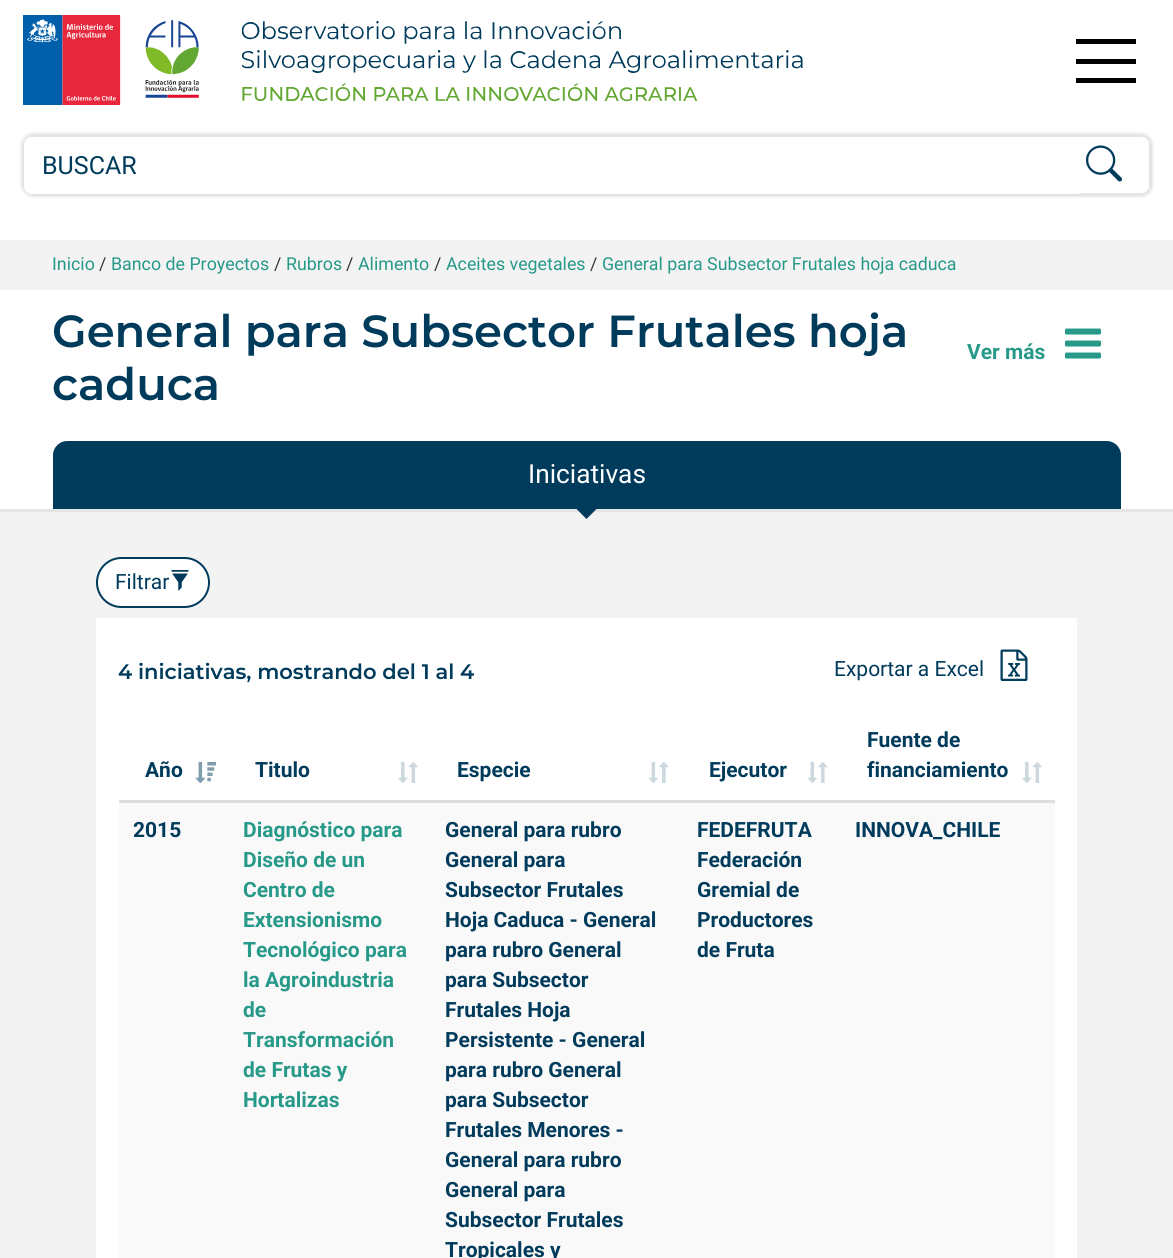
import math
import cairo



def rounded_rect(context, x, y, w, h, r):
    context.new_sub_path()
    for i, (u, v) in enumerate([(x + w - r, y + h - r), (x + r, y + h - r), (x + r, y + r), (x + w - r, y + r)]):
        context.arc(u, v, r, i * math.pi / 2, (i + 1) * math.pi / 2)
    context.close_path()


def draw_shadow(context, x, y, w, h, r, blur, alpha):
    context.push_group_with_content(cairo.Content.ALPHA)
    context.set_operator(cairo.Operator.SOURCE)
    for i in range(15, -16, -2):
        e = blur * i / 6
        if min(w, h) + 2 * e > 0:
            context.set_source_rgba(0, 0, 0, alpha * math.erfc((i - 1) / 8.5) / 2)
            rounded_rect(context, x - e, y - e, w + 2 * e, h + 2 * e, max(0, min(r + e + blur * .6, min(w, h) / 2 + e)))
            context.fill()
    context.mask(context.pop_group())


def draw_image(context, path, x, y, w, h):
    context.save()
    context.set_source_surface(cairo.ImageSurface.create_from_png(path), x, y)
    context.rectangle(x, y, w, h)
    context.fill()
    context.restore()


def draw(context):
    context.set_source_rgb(1, 1, 1)
    context.paint()
    draw_image(context, "images/1.png", 23, 15, 176, 90)
    draw_image(context, "images/2.png", 242, 21, 561, 81)
    context.set_source_rgb(0, 0, 0)
    context.rectangle(1076, 39, 60, 5)
    context.fill()
    context.rectangle(1076, 59, 60, 5)
    context.fill()
    context.rectangle(1076, 78, 60, 5)
    context.fill()
    context.save()
    context.set_fill_rule(cairo.FillRule.EVEN_ODD)
    context.new_path()
    context.move_to(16, 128)
    context.line_to(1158, 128)
    context.line_to(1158, 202)
    context.line_to(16, 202)
    context.close_path()
    context.move_to(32, 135)
    context.line_to(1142, 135)
    context.curve_to(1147, 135, 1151, 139, 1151, 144)
    context.line_to(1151, 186)
    context.curve_to(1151, 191, 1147, 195, 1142, 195)
    context.line_to(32, 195)
    context.curve_to(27, 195, 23, 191, 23, 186)
    context.line_to(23, 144)
    context.curve_to(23, 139, 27, 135, 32, 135)
    context.close_path()
    context.clip()
    context.set_source_rgb(29 / 255, 29 / 255, 27 / 255)
    draw_shadow(context, 23, 135, 1128, 60, 9, 2, 0.3)
    context.restore()
    rounded_rect(context, 24, 136, 1126, 58, 8)
    context.set_source_rgb(229 / 255, 229 / 255, 229 / 255)
    context.stroke()
    context.set_source_rgb(1, 1, 1)
    context.new_path()
    context.move_to(32, 137)
    context.line_to(1079, 137)
    context.line_to(1079, 194)
    context.line_to(32, 194)
    context.curve_to(27.5, 194, 24, 190.5, 24, 186)
    context.line_to(24, 145)
    context.curve_to(24, 140.5, 27.5, 137, 32, 137)
    context.close_path()
    context.fill()
    draw_image(context, "images/3.png", 1086, 145, 36, 37)
    context.set_source_rgb(243 / 255, 243 / 255, 243 / 255)
    context.rectangle(0, 240, 1173, 50)
    context.fill()
    draw_image(context, "images/4.png", 1065, 328, 36, 31)
    context.set_source_rgb(0, 59 / 255, 92 / 255)
    context.new_path()
    context.move_to(67, 441)
    context.line_to(1107, 441)
    context.curve_to(1114.5, 441, 1121, 447.5, 1121, 455)
    context.line_to(1121, 509)
    context.line_to(53, 509)
    context.line_to(53, 455)
    context.curve_to(53, 447.5, 59.5, 441, 67, 441)
    context.close_path()
    context.fill()
    context.set_source_rgb(243 / 255, 243 / 255, 243 / 255)
    context.rectangle(0, 512, 1173, 746)
    context.fill()
    context.set_source_rgb(229 / 255, 229 / 255, 229 / 255)
    context.rectangle(0, 509, 1173, 3)
    context.fill()
    context.set_source_rgb(0, 59 / 255, 92 / 255)
    context.new_path()
    context.move_to(586.5, 497.5)
    context.line_to(597, 508.5)
    context.line_to(586.5, 519)
    context.line_to(576, 508.5)
    context.close_path()
    context.fill()
    context.set_source_rgb(1, 1, 1)
    rounded_rect(context, 97, 558, 112, 49, 24.5)
    context.fill_preserve()
    context.set_source_rgb(0, 59 / 255, 92 / 255)
    context.stroke()
    draw_image(context, "images/5.png", 171, 570, 18, 21)
    context.set_source_rgb(1, 1, 1)
    context.rectangle(96, 618, 981, 640)
    context.fill()
    draw_image(context, "images/6.png", 1000, 649, 28, 32)
    context.set_source_rgb(221 / 255, 221 / 255, 221 / 255)
    context.rectangle(119, 800, 936, 2)
    context.fill()
    draw_image(context, "images/7.png", 195, 762, 22, 21)
    draw_image(context, "images/8.png", 398, 762, 20, 21)
    draw_image(context, "images/9.png", 648, 762, 21, 21)
    draw_image(context, "images/9.png", 807, 762, 21, 21)
    draw_image(context, "images/8.png", 1022, 762, 20, 21)
    context.set_source_rgb(249 / 255, 249 / 255, 249 / 255)
    context.rectangle(119, 803, 936, 455)
    context.fill()
    context.set_source_rgb(221 / 255, 221 / 255, 221 / 255)
    context.rectangle(119, 802, 936, 1)
    context.fill()
    context.select_font_face("Roboto")
    context.set_font_size(25)
    context.set_source_rgb(0, 59 / 255, 92 / 255)
    context.move_to(42, 174)
    context.show_text("BUSCAR")
    context.set_font_size(17.8)
    context.set_source_rgb(39 / 255, 153 / 255, 137 / 255)
    context.move_to(52, 270)
    context.show_text("Inicio")
    context.set_source_rgb(55 / 255, 55 / 255, 55 / 255)
    context.move_to(99, 270)
    context.show_text("/")
    context.set_source_rgb(39 / 255, 153 / 255, 137 / 255)
    context.move_to(111, 270)
    context.show_text("Banco de Proyectos")
    context.set_source_rgb(55 / 255, 55 / 255, 55 / 255)
    context.move_to(274, 270)
    context.show_text("/")
    context.set_source_rgb(39 / 255, 153 / 255, 137 / 255)
    context.move_to(286, 270)
    context.show_text("Rubros")
    context.set_source_rgb(55 / 255, 55 / 255, 55 / 255)
    context.move_to(346, 270)
    context.show_text("/")
    context.set_source_rgb(39 / 255, 153 / 255, 137 / 255)
    context.move_to(358, 270)
    context.show_text("Alimento")
    context.set_source_rgb(55 / 255, 55 / 255, 55 / 255)
    context.move_to(434, 270)
    context.show_text("/")
    context.set_source_rgb(39 / 255, 153 / 255, 137 / 255)
    context.move_to(446, 270)
    context.show_text("Aceites vegetales")
    context.set_source_rgb(55 / 255, 55 / 255, 55 / 255)
    context.move_to(590, 270)
    context.show_text("/")
    context.set_source_rgb(39 / 255, 153 / 255, 137 / 255)
    context.move_to(602, 270)
    context.show_text("General para Subsector Frutales hoja caduca")
    context.select_font_face("Montserrat SemiBold")
    context.set_font_size(44.9)
    context.set_source_rgb(0, 59 / 255, 92 / 255)
    context.move_to(52, 347)
    context.show_text("General para Subsector Frutales hoja")
    context.move_to(52, 400)
    context.show_text("caduca")
    context.select_font_face("Roboto", cairo.FontSlant.NORMAL, cairo.FontWeight.BOLD)
    context.set_font_size(21)
    context.set_source_rgb(39 / 255, 153 / 255, 137 / 255)
    context.move_to(967, 359)
    context.show_text("Ver más")
    context.select_font_face("Roboto")
    context.set_font_size(26.25)
    context.set_source_rgb(1, 1, 1)
    context.move_to(528, 483)
    context.show_text("Iniciativas")
    context.set_font_size(21)
    context.set_source_rgb(0, 59 / 255, 92 / 255)
    context.move_to(115, 589)
    context.show_text("Filtrar")
    context.select_font_face("Montserrat SemiBold")
    context.move_to(118, 679)
    context.show_text("4 iniciativas, mostrando del 1 al 4")
    context.select_font_face("Roboto")
    context.move_to(834, 676)
    context.show_text("Exportar a Excel")
    context.select_font_face("Roboto", cairo.FontSlant.NORMAL, cairo.FontWeight.BOLD)
    context.move_to(145, 777)
    context.show_text("Año")
    context.move_to(255, 777)
    context.show_text("Titulo")
    context.move_to(457, 777)
    context.show_text("Especie")
    context.move_to(709, 777)
    context.show_text("Ejecutor")
    context.move_to(867, 747)
    context.show_text("Fuente de")
    context.move_to(867, 777)
    context.show_text("financiamiento")
    context.move_to(133, 837)
    context.show_text("2015")
    context.set_source_rgb(39 / 255, 153 / 255, 137 / 255)
    context.move_to(243, 837)
    context.show_text("Diagnóstico para")
    context.move_to(243, 867)
    context.show_text("Diseño de un")
    context.move_to(243, 897)
    context.show_text("Centro de")
    context.move_to(243, 927)
    context.show_text("Extensionismo")
    context.move_to(243, 957)
    context.show_text("Tecnológico para")
    context.move_to(243, 987)
    context.show_text("la Agroindustria")
    context.move_to(243, 1017)
    context.show_text("de")
    context.move_to(243, 1047)
    context.show_text("Transformación")
    context.move_to(243, 1077)
    context.show_text("de Frutas y")
    context.move_to(243, 1107)
    context.show_text("Hortalizas")
    context.set_source_rgb(0, 59 / 255, 92 / 255)
    context.move_to(445, 837)
    context.show_text("General para rubro")
    context.move_to(445, 867)
    context.show_text("General para")
    context.move_to(445, 897)
    context.show_text("Subsector Frutales")
    context.move_to(445, 927)
    context.show_text("Hoja Caduca - General")
    context.move_to(445, 957)
    context.show_text("para rubro General")
    context.move_to(445, 987)
    context.show_text("para Subsector")
    context.move_to(445, 1017)
    context.show_text("Frutales Hoja")
    context.move_to(445, 1047)
    context.show_text("Persistente - General")
    context.move_to(445, 1077)
    context.show_text("para rubro General")
    context.move_to(445, 1107)
    context.show_text("para Subsector")
    context.move_to(445, 1137)
    context.show_text("Frutales Menores -")
    context.move_to(445, 1167)
    context.show_text("General para rubro")
    context.move_to(445, 1197)
    context.show_text("General para")
    context.move_to(445, 1227)
    context.show_text("Subsector Frutales")
    context.move_to(445, 1257)
    context.show_text("Tropicales y")
    context.move_to(697, 837)
    context.show_text("FEDEFRUTA")
    context.move_to(697, 867)
    context.show_text("Federación")
    context.move_to(697, 897)
    context.show_text("Gremial de")
    context.move_to(697, 927)
    context.show_text("Productores")
    context.move_to(697, 957)
    context.show_text("de Fruta")
    context.move_to(855, 837)
    context.show_text("INNOVA_CHILE")


surface = cairo.ImageSurface(cairo.Format.RGB24, 1173, 1258)
context = cairo.Context(surface)
options = cairo.FontOptions()
options.set_hint_metrics(cairo.HintMetrics.OFF)
options.set_hint_style(cairo.HintStyle.NONE)
context.set_font_options(options)
context.set_miter_limit(4)
draw(context)
surface.write_to_png("out.png")
